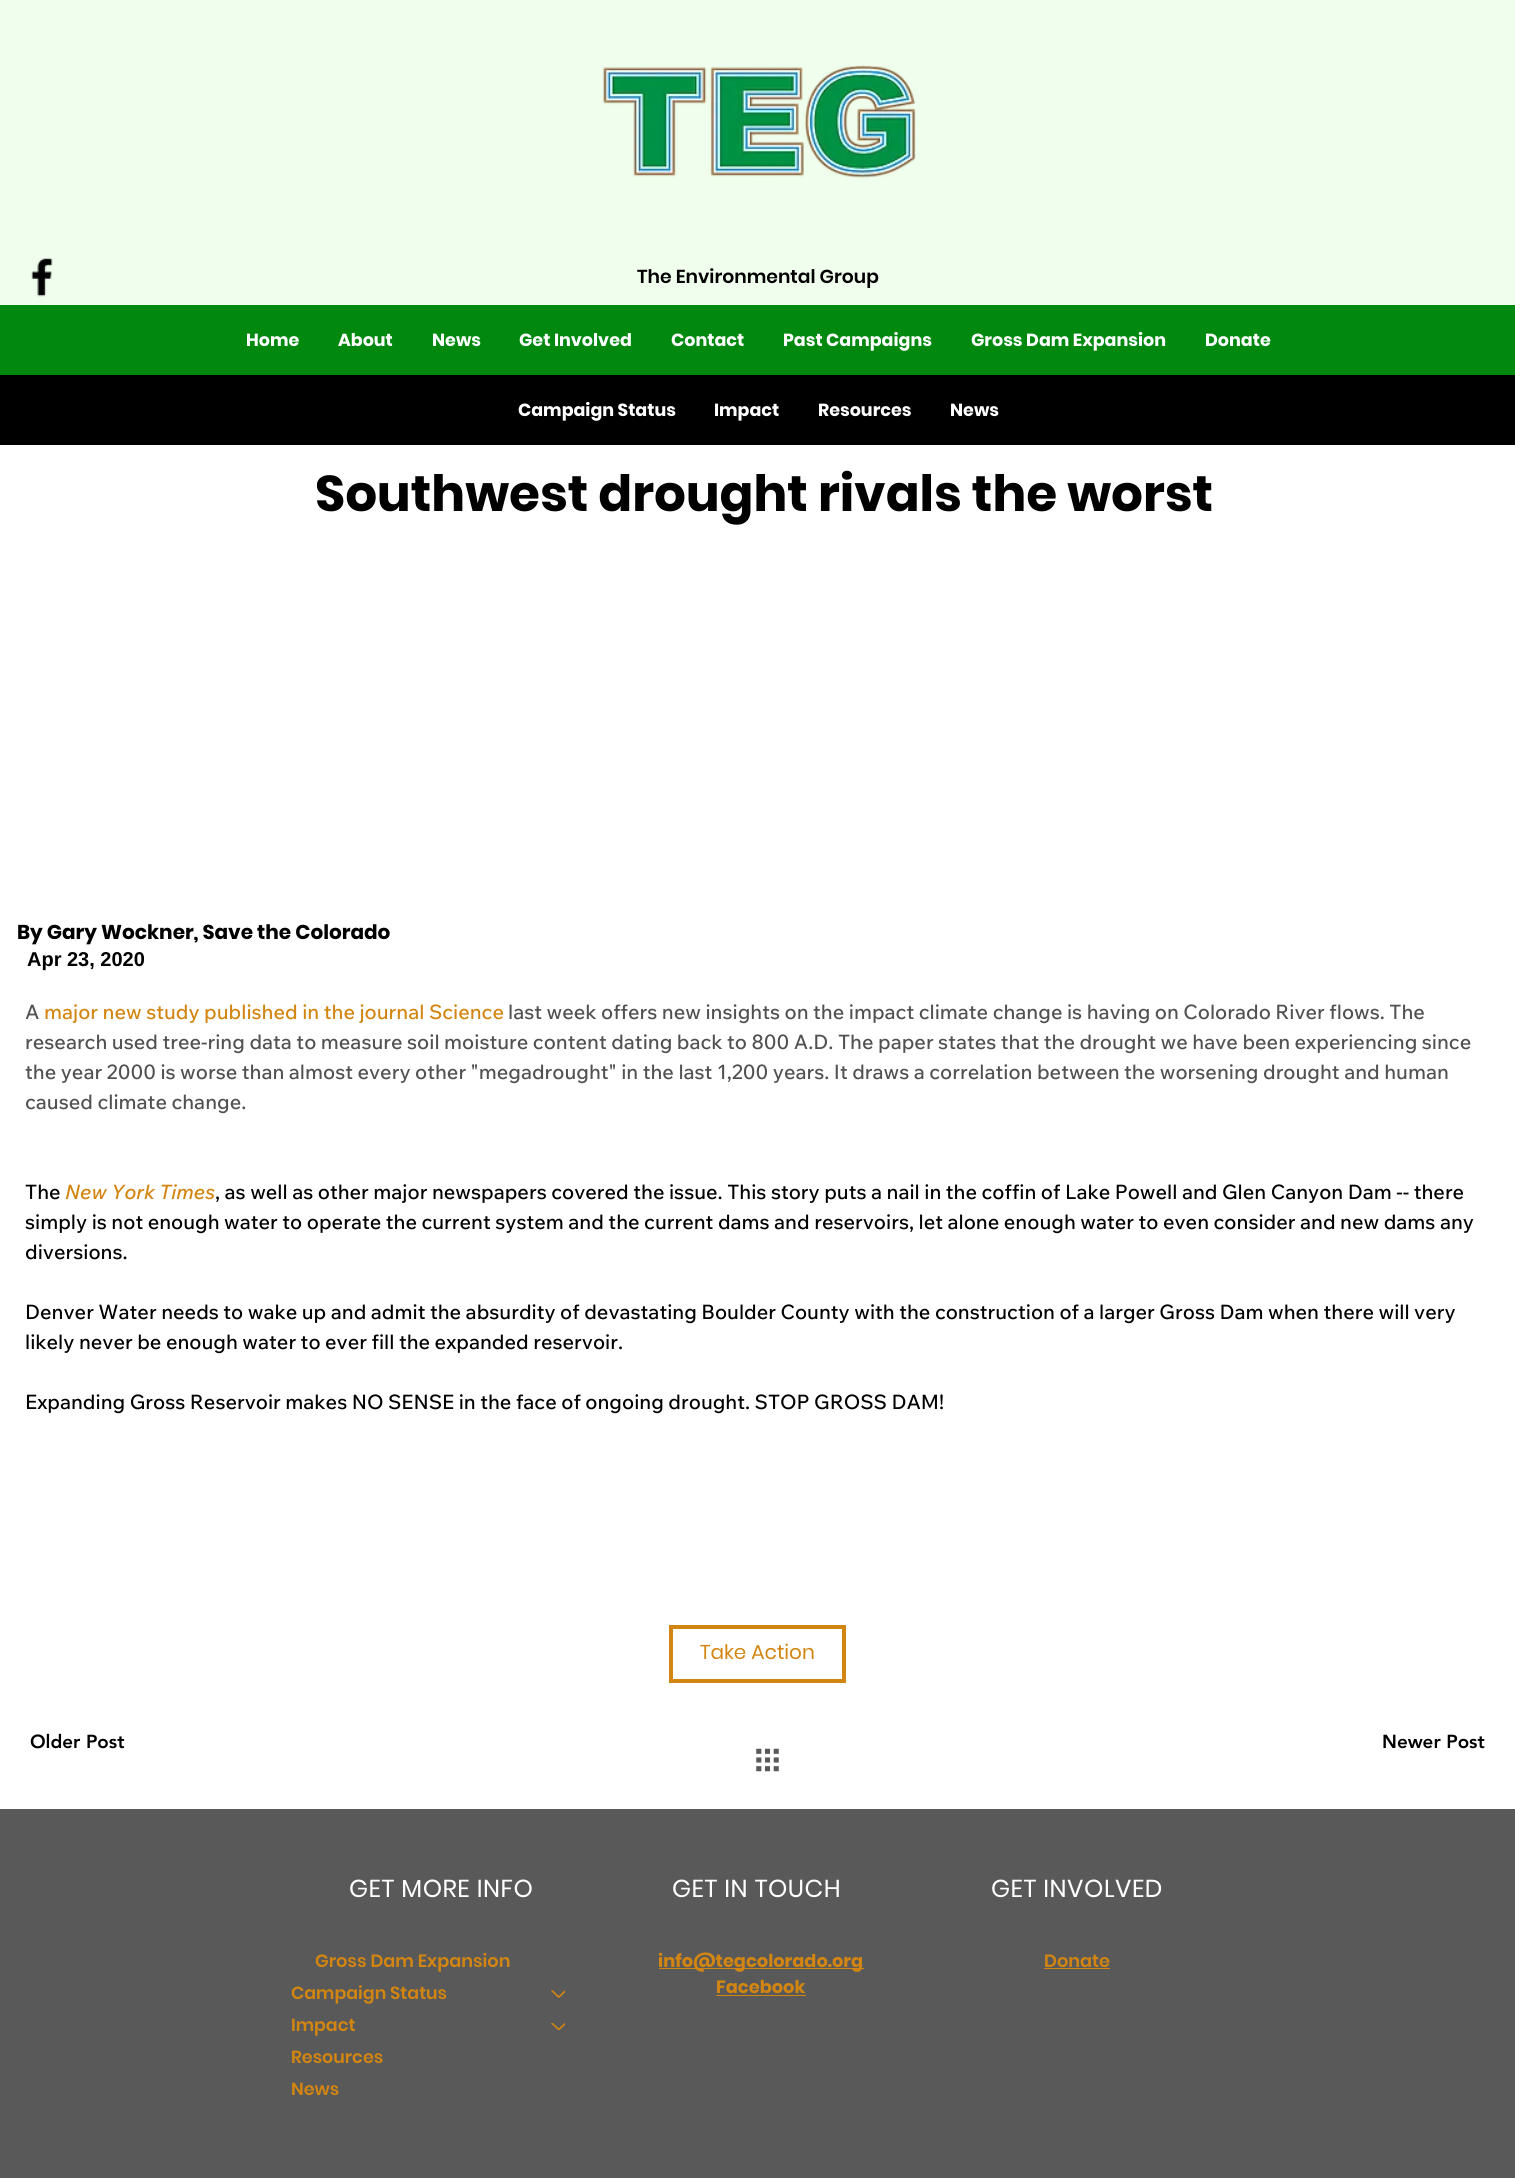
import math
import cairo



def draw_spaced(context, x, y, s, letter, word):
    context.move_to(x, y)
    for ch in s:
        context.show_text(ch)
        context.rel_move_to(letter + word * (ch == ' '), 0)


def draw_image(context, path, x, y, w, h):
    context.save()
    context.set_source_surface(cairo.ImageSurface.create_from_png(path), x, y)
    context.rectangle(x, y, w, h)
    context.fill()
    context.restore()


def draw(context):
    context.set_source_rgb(1, 1, 1)
    context.paint()
    context.set_source_rgb(240 / 255, 1, 237 / 255)
    context.rectangle(0, 0, 1515, 305)
    context.fill()
    draw_image(context, "images/1.png", 602, 65, 314, 113)
    draw_image(context, "images/2.png", 31, 258, 22, 39)
    context.set_source_rgb(0, 137 / 255, 14 / 255)
    context.rectangle(0, 305, 1515, 70)
    context.fill()
    context.set_source_rgb(0, 0, 0)
    context.rectangle(0, 375, 1515, 70)
    context.fill()
    context.rectangle(671, 1627, 173, 54)
    context.set_source_rgb(210 / 255, 134 / 255, 17 / 255)
    context.set_line_width(4)
    context.stroke()
    draw_image(context, "images/3.png", 756, 1748, 23, 24)
    context.set_source_rgb(89 / 255, 89 / 255, 89 / 255)
    context.rectangle(0, 1809, 1515, 369)
    context.fill()
    context.set_source_rgb(210 / 255, 134 / 255, 17 / 255)
    context.rectangle(659, 1968, 205, 1)
    context.fill()
    context.rectangle(716, 1995, 90, 1)
    context.fill()
    context.rectangle(1044, 1968, 66, 1)
    context.fill()
    draw_image(context, "images/4.png", 551, 1990, 14, 8)
    draw_image(context, "images/5.png", 551, 2023, 14, 7)
    context.select_font_face("Poppins SemiBold")
    context.set_font_size(18.75)
    context.set_source_rgb(0, 0, 0)
    context.move_to(637, 283)
    context.show_text("The Environmental Group")
    context.select_font_face("Poppins", cairo.FontSlant.NORMAL, cairo.FontWeight.BOLD)
    context.set_font_size(17.5)
    context.set_source_rgb(1, 1, 1)
    context.move_to(246, 346)
    context.show_text("Home")
    context.move_to(338, 346)
    context.show_text("About")
    context.move_to(432, 346)
    context.show_text("News")
    context.move_to(519, 346)
    context.show_text("Get Involved")
    context.move_to(671, 346)
    context.show_text("Contact")
    context.move_to(783, 346)
    context.show_text("Past Campaigns")
    context.move_to(971, 346)
    context.show_text("Gross Dam Expansion")
    context.move_to(1205, 346)
    context.show_text("Donate")
    context.move_to(518, 416)
    context.show_text("Campaign Status")
    context.move_to(714, 416)
    context.show_text("Impact")
    context.move_to(818, 416)
    context.show_text("Resources")
    context.move_to(950, 416)
    context.show_text("News")
    context.set_font_size(50)
    context.set_source_rgb(0, 0, 0)
    context.move_to(315, 511)
    context.show_text("Southwest drought rivals the worst")
    context.set_font_size(20)
    context.move_to(17, 939)
    context.show_text("By Gary Wockner, Save the Colorado")
    context.select_font_face("Liberation Sans", cairo.FontSlant.NORMAL, cairo.FontWeight.BOLD)
    context.move_to(27, 966)
    context.show_text("Apr 23, 2020")
    context.select_font_face("Wix Madefor Text Medium")
    context.set_source_rgb(81 / 255, 81 / 255, 81 / 255)
    context.move_to(25, 1019)
    context.show_text("A")
    context.set_source_rgb(210 / 255, 134 / 255, 17 / 255)
    context.move_to(44, 1019)
    context.show_text("major new study published in the journal Science")
    context.set_source_rgb(81 / 255, 81 / 255, 81 / 255)
    context.move_to(508, 1019)
    context.show_text("last week offers new insights on the impact climate change is having on Colorado River flows. The")
    context.move_to(25, 1049)
    context.show_text("research used tree-ring data to measure soil moisture content dating back to 800 A.D. The paper states that the drought we have been experiencing since")
    context.move_to(25, 1079)
    context.show_text("the year 2000 is worse than almost every other \"megadrought\" in the last 1,200 years. It draws a correlation between the worsening drought and human")
    context.move_to(25, 1109)
    context.show_text("caused climate change.")
    context.set_source_rgb(0, 0, 0)
    context.move_to(25, 1199)
    context.show_text("The")
    context.select_font_face("Wix Madefor Text Medium", cairo.FontSlant.ITALIC)
    context.set_source_rgb(210 / 255, 134 / 255, 17 / 255)
    context.move_to(65, 1199)
    context.show_text("New York Times")
    context.select_font_face("Wix Madefor Text Medium")
    context.set_source_rgb(0, 0, 0)
    context.move_to(215, 1199)
    context.show_text(", as well as other major newspapers covered the issue. This story puts a nail in the coffin of Lake Powell and Glen Canyon Dam -- there")
    context.move_to(25, 1229)
    context.show_text("simply is not enough water to operate the current system and the current dams and reservoirs, let alone enough water to even consider and new dams any")
    context.move_to(25, 1259)
    context.show_text("diversions.")
    context.move_to(25, 1319)
    context.show_text("Denver Water needs to wake up and admit the absurdity of devastating Boulder County with the construction of a larger Gross Dam when there will very")
    context.move_to(25, 1349)
    context.show_text("likely never be enough water to ever fill the expanded reservoir.")
    context.move_to(25, 1409)
    context.show_text("Expanding Gross Reservoir makes NO SENSE in the face of ongoing drought. STOP GROSS DAM!")
    context.select_font_face("Poppins")
    context.set_source_rgb(210 / 255, 134 / 255, 17 / 255)
    context.move_to(700, 1659)
    context.show_text("Take Action")
    context.select_font_face("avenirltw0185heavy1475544 Black")
    context.set_font_size(18.75)
    context.set_source_rgb(0, 0, 0)
    context.move_to(30, 1748)
    context.show_text("Older Post")
    context.move_to(1382, 1748)
    context.show_text("Newer Post")
    context.select_font_face("Poppins")
    context.set_font_size(24.5)
    context.set_source_rgb(1, 1, 1)
    draw_spaced(context, 349, 1897, "GET MORE INFO", 0.5, 0)
    draw_spaced(context, 672, 1897, "GET IN TOUCH", 0.5, 0)
    draw_spaced(context, 991, 1897, "GET INVOLVED", 0.5, 0)
    context.select_font_face("Poppins SemiBold")
    context.set_font_size(17.75)
    context.set_source_rgb(210 / 255, 134 / 255, 17 / 255)
    context.move_to(315, 1967)
    context.show_text("Gross Dam Expansion")
    context.select_font_face("Poppins", cairo.FontSlant.NORMAL, cairo.FontWeight.BOLD)
    context.move_to(658, 1967)
    context.show_text("info@tegcolorado.org")
    context.move_to(716, 1993)
    context.show_text("Facebook")
    context.select_font_face("Poppins SemiBold")
    context.move_to(1044, 1967)
    context.show_text("Donate")
    context.set_font_size(17.5)
    context.move_to(291, 1999)
    context.show_text("Campaign Status")
    context.move_to(291, 2031)
    context.show_text("Impact")
    context.move_to(291, 2063)
    context.show_text("Resources")
    context.move_to(291, 2095)
    context.show_text("News")


surface = cairo.ImageSurface(cairo.Format.RGB24, 1515, 2178)
context = cairo.Context(surface)
options = cairo.FontOptions()
options.set_hint_metrics(cairo.HintMetrics.OFF)
options.set_hint_style(cairo.HintStyle.NONE)
context.set_font_options(options)
context.set_miter_limit(4)
draw(context)
surface.write_to_png("out.png")
